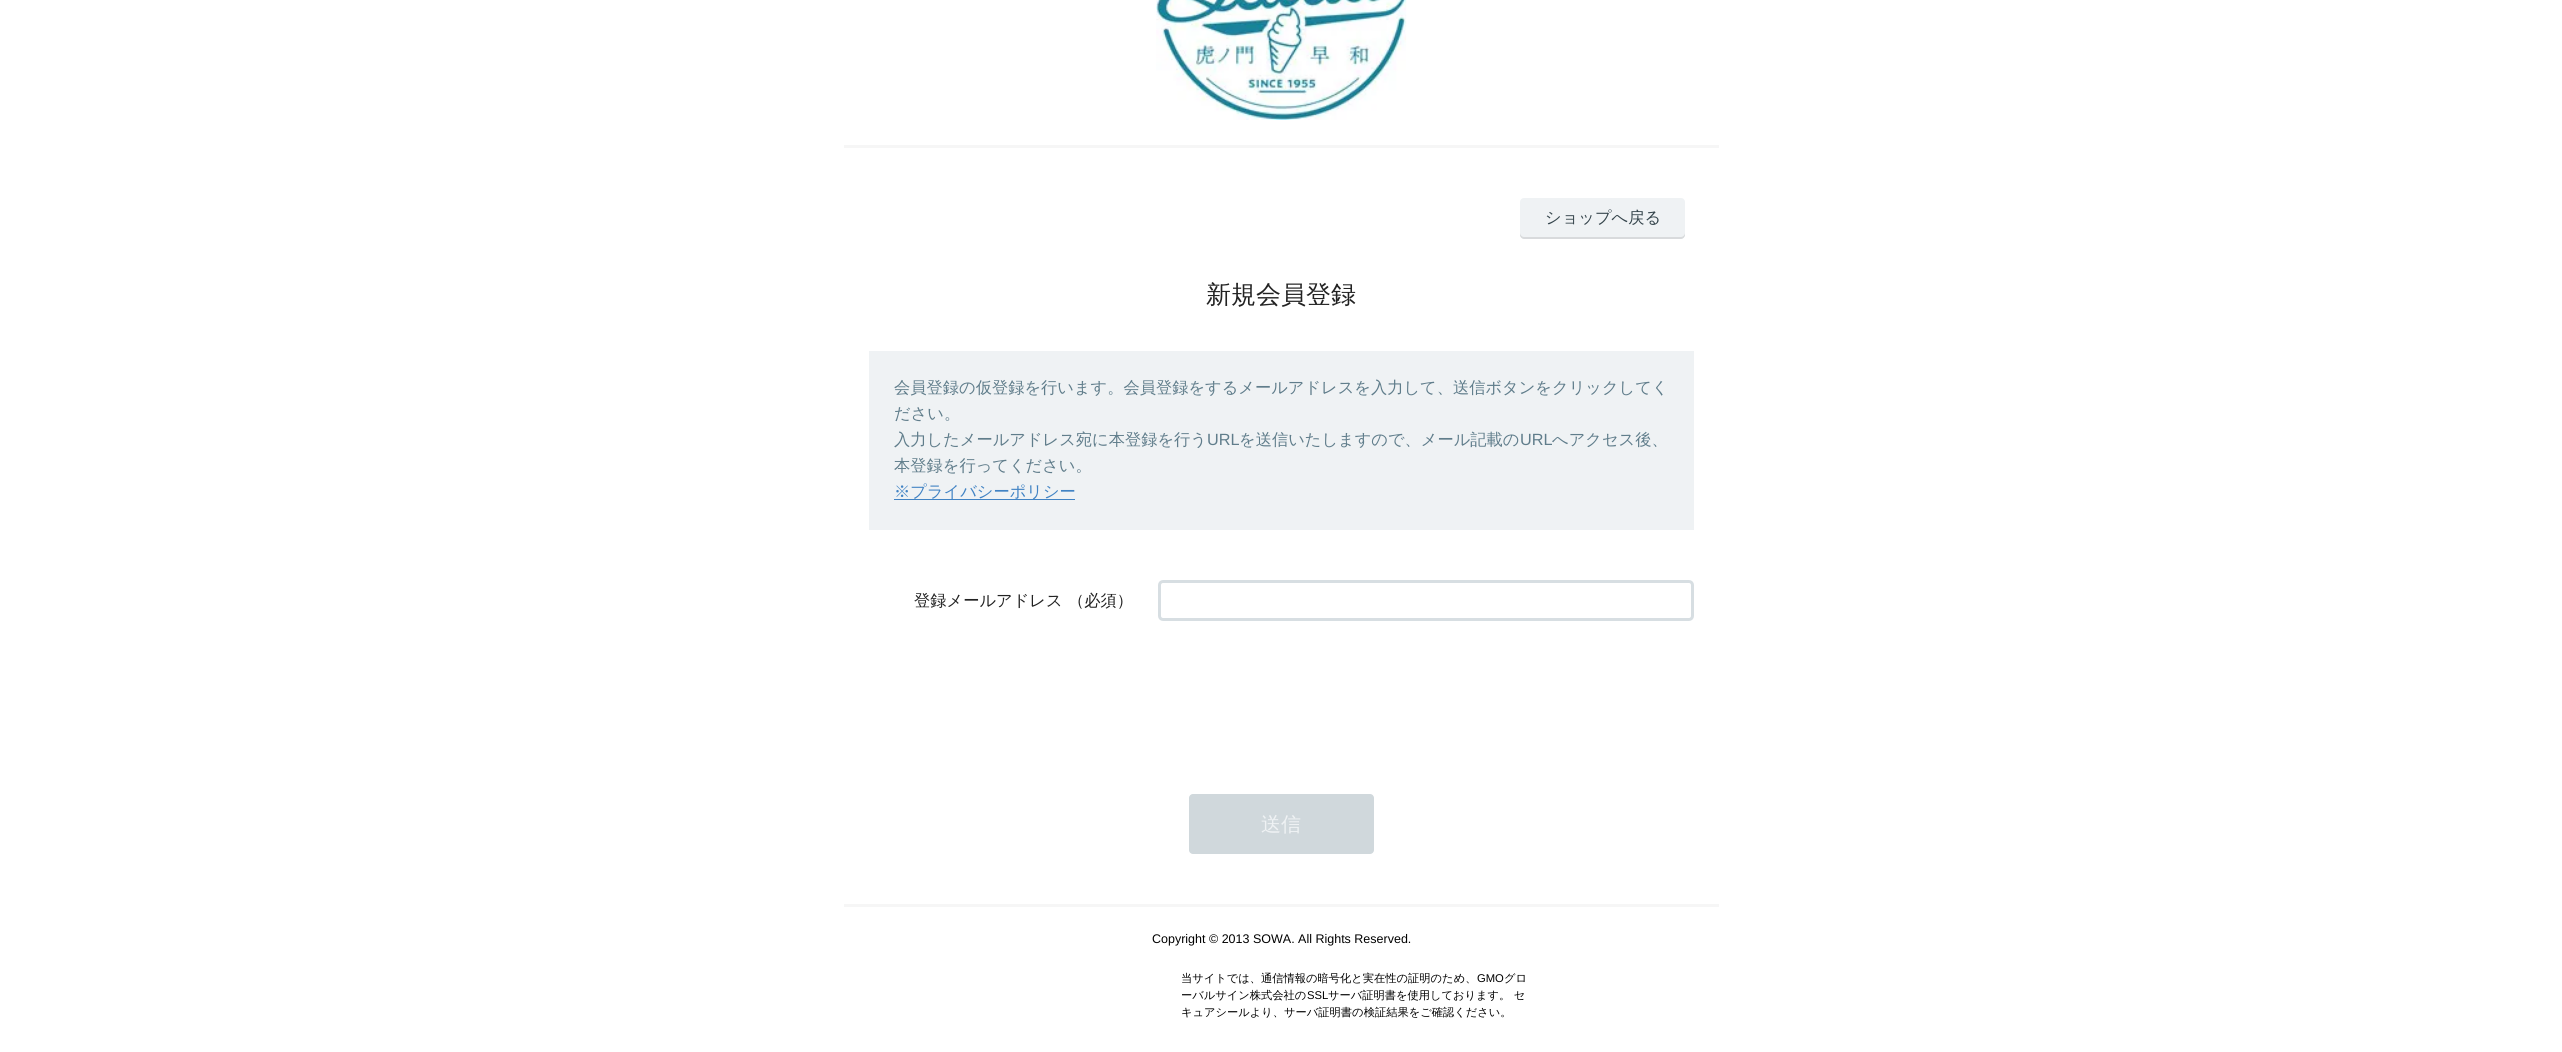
import math
import cairo



def rounded_rect(context, x, y, w, h, r):
    context.new_sub_path()
    for i, (u, v) in enumerate([(x + w - r, y + h - r), (x + r, y + h - r), (x + r, y + r), (x + w - r, y + r)]):
        context.arc(u, v, r, i * math.pi / 2, (i + 1) * math.pi / 2)
    context.close_path()


def draw_image(context, path, x, y, w, h):
    context.save()
    context.set_source_surface(cairo.ImageSurface.create_from_png(path), x, y)
    context.rectangle(x, y, w, h)
    context.fill()
    context.restore()


def draw(context):
    context.set_source_rgb(1, 1, 1)
    context.paint()
    draw_image(context, "images/1.png", 1156, 0, 251, 120)
    context.set_source_rgb(246 / 255, 246 / 255, 246 / 255)
    context.rectangle(844, 145, 875, 3)
    context.fill()
    context.rectangle(844, 904, 875, 3)
    context.fill()
    context.set_source_rgb(239 / 255, 242 / 255, 244 / 255)
    rounded_rect(context, 1520, 198, 165, 41, 4)
    context.fill()
    context.set_source_rgba(0, 0, 0, 0.1)
    context.new_path()
    context.move_to(1520, 233)
    context.line_to(1520, 235)
    context.curve_to(1520, 237, 1522, 239, 1524, 239)
    context.line_to(1681, 239)
    context.curve_to(1683, 239, 1685, 237, 1685, 235)
    context.line_to(1685, 233)
    context.curve_to(1685, 235, 1683, 237, 1681, 237)
    context.line_to(1524, 237)
    context.curve_to(1522, 237, 1520, 235, 1520, 233)
    context.close_path()
    context.fill()
    context.set_source_rgb(239 / 255, 242 / 255, 244 / 255)
    context.rectangle(869, 351, 825, 179)
    context.fill()
    context.set_source_rgb(65 / 255, 131 / 255, 196 / 255)
    context.rectangle(894, 499, 181, 1)
    context.fill()
    rounded_rect(context, 1159.5, 581.5, 533, 38, 3.5)
    context.set_source_rgb(215 / 255, 222 / 255, 226 / 255)
    context.set_line_width(3)
    context.stroke()
    context.set_source_rgb(208 / 255, 216 / 255, 220 / 255)
    rounded_rect(context, 1189, 794, 185, 60, 4)
    context.fill()
    context.select_font_face("WenQuanYi Zen Hei Medium")
    context.set_font_size(16.25)
    context.set_source_rgb(53 / 255, 69 / 255, 76 / 255)
    context.move_to(1545, 223)
    context.show_text("ショップへ戻る")
    context.set_font_size(25)
    context.set_source_rgb(34 / 255, 34 / 255, 34 / 255)
    context.move_to(1206, 303)
    context.show_text("新規会員登録")
    context.set_font_size(16.25)
    context.set_source_rgb(96 / 255, 125 / 255, 139 / 255)
    context.move_to(894, 393)
    context.show_text("会員登録の仮登録を行います。会員登録をするメールアドレスを入力して、送信ボタンをクリックしてく")
    context.move_to(894, 419)
    context.show_text("ださい。")
    context.move_to(894, 445)
    context.show_text("入力したメールアドレス宛に本登録を行う")
    context.select_font_face("Liberation Sans")
    context.move_to(1207, 445)
    context.show_text("URL")
    context.select_font_face("WenQuanYi Zen Hei Medium")
    context.move_to(1239, 445)
    context.show_text("を送信いたしますので、メール記載の")
    context.select_font_face("Liberation Sans")
    context.move_to(1520, 445)
    context.show_text("URL")
    context.select_font_face("WenQuanYi Zen Hei Medium")
    context.move_to(1552, 445)
    context.show_text("へアクセス後、")
    context.move_to(894, 471)
    context.show_text("本登録を行ってください。")
    context.set_source_rgb(65 / 255, 131 / 255, 196 / 255)
    context.move_to(894, 497)
    context.show_text("※プライバシーポリシー")
    context.set_source_rgb(34 / 255, 34 / 255, 34 / 255)
    context.move_to(914, 606)
    context.show_text("登録メールアドレス")
    context.move_to(1068, 606)
    context.show_text("（必須）")
    context.set_font_size(20)
    context.set_source_rgb(239 / 255, 242 / 255, 244 / 255)
    context.move_to(1261, 831)
    context.show_text("送信")
    context.select_font_face("Liberation Sans")
    context.set_font_size(12.5)
    context.set_source_rgb(0, 0, 0)
    context.move_to(1152, 943)
    context.show_text("Copyright © 2013 SOWA. All Rights Reserved.")
    context.select_font_face("WenQuanYi Zen Hei Medium")
    context.set_font_size(11.25)
    context.move_to(1181, 982)
    context.show_text("当サイトでは、通信情報の暗号化と実在性の証明のため、")
    context.select_font_face("Liberation Sans")
    context.move_to(1477, 982)
    context.show_text("GMO")
    context.select_font_face("WenQuanYi Zen Hei Medium")
    context.move_to(1504, 982)
    context.show_text("グロ")
    context.move_to(1181, 999)
    context.show_text("ーバルサイン株式会社の")
    context.select_font_face("Liberation Sans")
    context.move_to(1307, 999)
    context.show_text("SSL")
    context.select_font_face("WenQuanYi Zen Hei Medium")
    context.move_to(1328, 999)
    context.show_text("サーバ証明書を使用しております。 セ")
    context.move_to(1181, 1016)
    context.show_text("キュアシールより、サーバ証明書の検証結果をご確認ください。")


surface = cairo.ImageSurface(cairo.Format.RGB24, 2562, 1052)
context = cairo.Context(surface)
options = cairo.FontOptions()
options.set_hint_metrics(cairo.HintMetrics.OFF)
options.set_hint_style(cairo.HintStyle.NONE)
context.set_font_options(options)
context.set_miter_limit(4)
draw(context)
surface.write_to_png("out.png")
